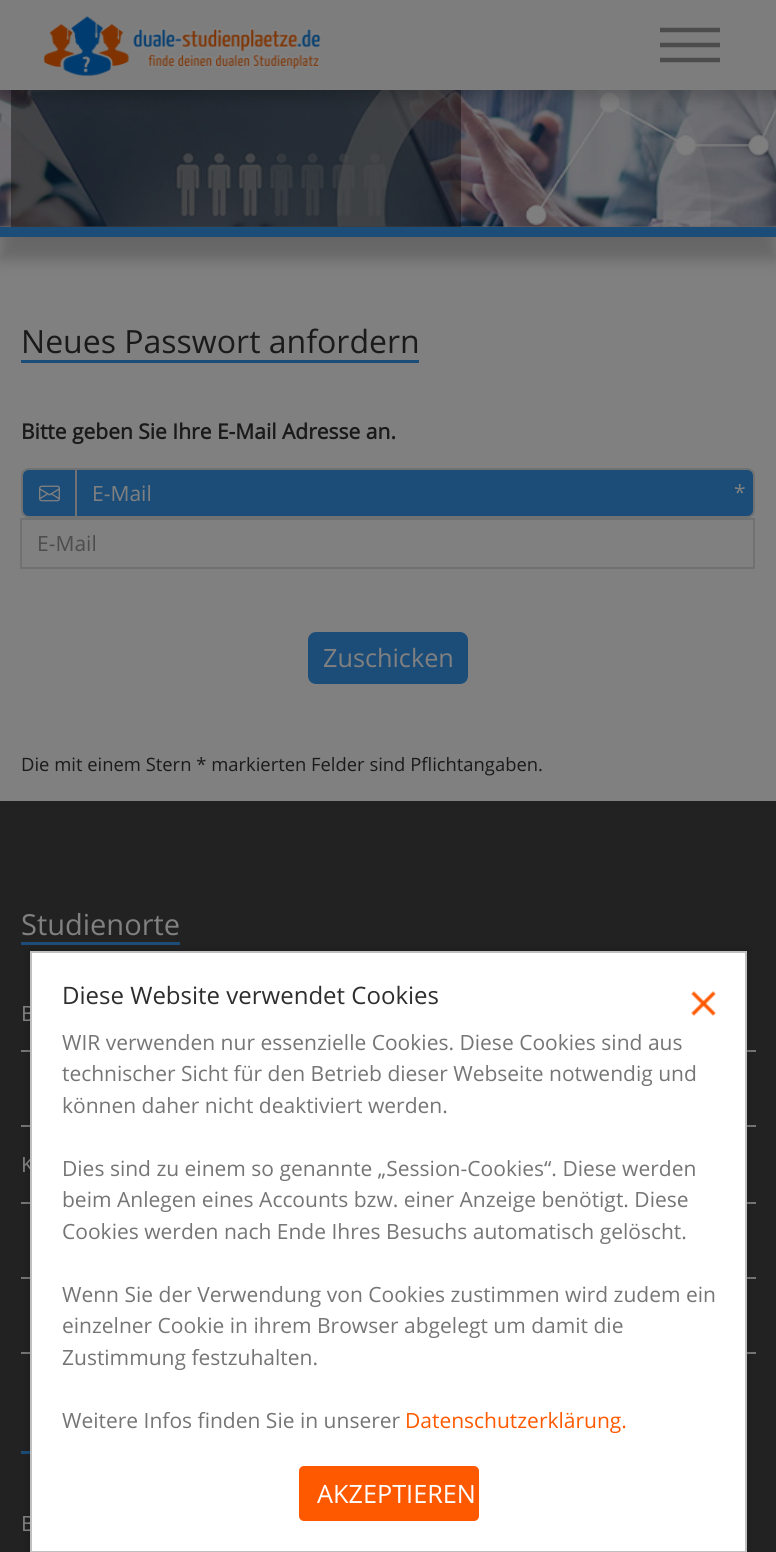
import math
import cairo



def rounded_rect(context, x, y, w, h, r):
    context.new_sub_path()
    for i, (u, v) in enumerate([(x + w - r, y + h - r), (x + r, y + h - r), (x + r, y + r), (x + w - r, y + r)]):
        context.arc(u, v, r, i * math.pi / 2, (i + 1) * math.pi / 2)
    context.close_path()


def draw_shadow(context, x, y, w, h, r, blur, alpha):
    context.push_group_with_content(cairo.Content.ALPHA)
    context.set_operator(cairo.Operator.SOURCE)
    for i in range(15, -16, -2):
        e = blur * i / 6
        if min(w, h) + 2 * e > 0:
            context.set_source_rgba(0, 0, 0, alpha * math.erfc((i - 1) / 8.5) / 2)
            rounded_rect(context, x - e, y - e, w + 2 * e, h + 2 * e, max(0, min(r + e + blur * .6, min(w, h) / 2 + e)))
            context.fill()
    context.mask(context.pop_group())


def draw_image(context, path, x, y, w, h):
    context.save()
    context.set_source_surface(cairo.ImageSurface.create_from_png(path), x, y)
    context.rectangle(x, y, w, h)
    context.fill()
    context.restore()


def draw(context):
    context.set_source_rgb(128 / 255, 128 / 255, 128 / 255)
    context.paint()
    context.set_source_rgb(0, 0, 0)
    draw_shadow(context, 0, -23, 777, 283, 0, 7.5, 0.2)
    draw_image(context, "images/1.png", 0, 90, 776, 137)
    context.set_source_rgb(28 / 255, 77 / 255, 120 / 255)
    context.rectangle(0, 227, 776, 10)
    context.fill()
    context.set_source_rgba(0, 0, 0, 0.4)
    context.rectangle(11, 90, 450, 137)
    context.fill()
    context.set_source_rgb(0, 0, 0)
    draw_shadow(context, 0, 8, 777, 90, 0, 7.5, 0.2)
    context.set_source_rgb(125 / 255, 125 / 255, 125 / 255)
    context.rectangle(0, 0, 776, 90)
    context.fill()
    draw_image(context, "images/2.png", 44, 16, 277, 60)
    draw_image(context, "images/3.png", 660, 27, 60, 36)
    context.set_source_rgb(28 / 255, 77 / 255, 120 / 255)
    context.rectangle(21, 360, 398, 3)
    context.fill()
    context.new_path()
    context.move_to(29, 469)
    context.line_to(76, 469)
    context.line_to(76, 517)
    context.line_to(29, 517)
    context.curve_to(25, 517, 22, 514, 22, 510)
    context.line_to(22, 476)
    context.curve_to(22, 472, 25, 469, 29, 469)
    context.close_path()
    context.fill_preserve()
    context.set_source_rgb(111 / 255, 113 / 255, 115 / 255)
    context.stroke()
    draw_image(context, "images/4.png", 39, 485, 21, 17)
    context.set_source_rgb(28 / 255, 77 / 255, 120 / 255)
    context.new_path()
    context.move_to(76, 469)
    context.line_to(747, 469)
    context.curve_to(751, 469, 754, 472, 754, 476)
    context.line_to(754, 510)
    context.curve_to(754, 514, 751, 517, 747, 517)
    context.line_to(76, 517)
    context.close_path()
    context.fill_preserve()
    context.set_source_rgb(111 / 255, 113 / 255, 115 / 255)
    context.stroke()
    context.rectangle(21, 519, 733, 49)
    context.stroke()
    context.set_source_rgb(28 / 255, 77 / 255, 120 / 255)
    rounded_rect(context, 308, 632, 160, 52, 8)
    context.fill()
    context.set_source_rgb(34 / 255, 34 / 255, 34 / 255)
    context.rectangle(0, 801, 776, 751)
    context.fill()
    context.set_source_rgb(28 / 255, 77 / 255, 120 / 255)
    context.rectangle(21, 942, 159, 3)
    context.fill()
    context.set_source_rgb(118 / 255, 118 / 255, 118 / 255)
    context.rectangle(21, 1050, 735, 2)
    context.fill()
    context.rectangle(21, 1125, 735, 2)
    context.fill()
    context.rectangle(21, 1202, 735, 2)
    context.fill()
    context.rectangle(21, 1277, 735, 2)
    context.fill()
    context.rectangle(21, 1352, 735, 2)
    context.fill()
    context.set_source_rgb(28 / 255, 77 / 255, 120 / 255)
    context.rectangle(21, 1451, 9, 3)
    context.fill()
    context.set_source_rgb(0, 0, 0)
    draw_shadow(context, 30, 951, 717, 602, 0, 4, 0.25)
    context.select_font_face("Open Sans")
    context.set_font_size(32)
    context.set_source_rgb(26 / 255, 26 / 255, 26 / 255)
    context.move_to(21, 353)
    context.show_text("Neues Passwort anfordern")
    context.select_font_face("Open Sans", cairo.FontSlant.NORMAL, cairo.FontWeight.BOLD)
    context.set_font_size(21)
    context.move_to(21, 439)
    context.show_text("Bitte geben Sie Ihre E-Mail Adresse an.")
    context.select_font_face("Open Sans")
    context.set_source_rgb(128 / 255, 128 / 255, 128 / 255)
    context.move_to(92, 501)
    context.show_text("E-Mail")
    context.move_to(734, 500)
    context.show_text("*")
    context.set_source_rgb(77 / 255, 77 / 255, 77 / 255)
    context.move_to(37, 551)
    context.show_text("E-Mail")
    context.set_font_size(25.25)
    context.set_source_rgb(128 / 255, 128 / 255, 128 / 255)
    context.move_to(323, 667)
    context.show_text("Zuschicken")
    context.set_font_size(18.4)
    context.set_source_rgb(26 / 255, 26 / 255, 26 / 255)
    context.move_to(21, 771)
    context.show_text("Die mit einem Stern * markierten Felder sind Pflichtangaben.")
    context.set_font_size(29)
    context.set_source_rgb(128 / 255, 128 / 255, 128 / 255)
    context.move_to(21, 935)
    context.show_text("Studienorte")
    context.set_font_size(21)
    context.move_to(21, 1021)
    context.show_text("B")
    context.move_to(21, 1172)
    context.show_text("K")
    context.move_to(21, 1531)
    context.show_text("B")
    context.set_source_rgb(1, 1, 1)
    context.rectangle(31, 952, 715, 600)
    context.fill_preserve()
    context.set_source_rgb(191 / 255, 191 / 255, 191 / 255)
    context.stroke()
    context.set_font_size(24)
    context.set_source_rgb(46 / 255, 46 / 255, 46 / 255)
    context.move_to(62, 1004)
    context.show_text("Diese Website verwendet Cookies")
    draw_image(context, "images/5.png", 691, 991, 25, 25)
    context.set_font_size(21)
    context.set_source_rgb(117 / 255, 117 / 255, 117 / 255)
    context.move_to(62, 1050)
    context.show_text("WIR verwenden nur essenzielle Cookies. Diese Cookies sind aus")
    context.move_to(62, 1081)
    context.show_text("technischer Sicht für den Betrieb dieser Webseite notwendig und")
    context.move_to(62, 1113)
    context.show_text("können daher nicht deaktiviert werden.")
    context.move_to(62, 1176)
    context.show_text("Dies sind zu einem so genannte „Session-Cookies“. Diese werden")
    context.move_to(62, 1207)
    context.show_text("beim Anlegen eines Accounts bzw. einer Anzeige benötigt. Diese")
    context.move_to(62, 1239)
    context.show_text("Cookies werden nach Ende Ihres Besuchs automatisch gelöscht.")
    context.move_to(62, 1302)
    context.show_text("Wenn Sie der Verwendung von Cookies zustimmen wird zudem ein")
    context.move_to(62, 1333)
    context.show_text("einzelner Cookie in ihrem Browser abgelegt um damit die")
    context.move_to(62, 1365)
    context.show_text("Zustimmung festzuhalten.")
    context.move_to(62, 1428)
    context.show_text("Weitere Infos finden Sie in unserer")
    context.set_source_rgb(1, 89 / 255, 0)
    context.move_to(405, 1428)
    context.show_text("Datenschutzerklärung.")
    rounded_rect(context, 299, 1466, 180, 55, 5)
    context.fill()
    context.set_font_size(25.25)
    context.set_source_rgb(1, 1, 1)
    context.move_to(317, 1503)
    context.show_text("AKZEPTIEREN")


surface = cairo.ImageSurface(cairo.Format.RGB24, 776, 1552)
context = cairo.Context(surface)
options = cairo.FontOptions()
options.set_hint_metrics(cairo.HintMetrics.OFF)
options.set_hint_style(cairo.HintStyle.NONE)
context.set_font_options(options)
context.set_miter_limit(4)
draw(context)
surface.write_to_png("out.png")
